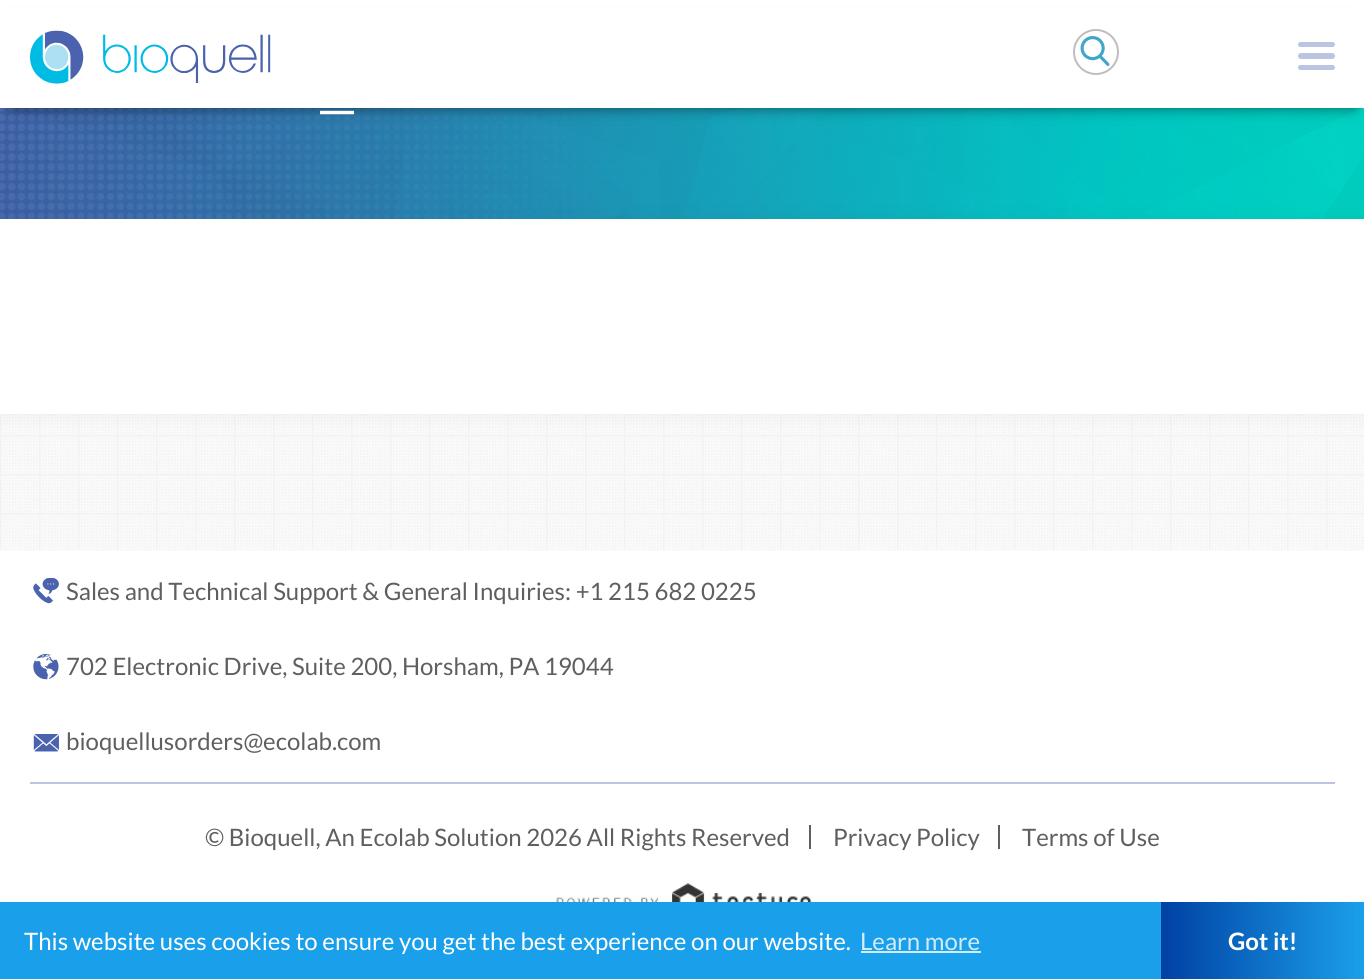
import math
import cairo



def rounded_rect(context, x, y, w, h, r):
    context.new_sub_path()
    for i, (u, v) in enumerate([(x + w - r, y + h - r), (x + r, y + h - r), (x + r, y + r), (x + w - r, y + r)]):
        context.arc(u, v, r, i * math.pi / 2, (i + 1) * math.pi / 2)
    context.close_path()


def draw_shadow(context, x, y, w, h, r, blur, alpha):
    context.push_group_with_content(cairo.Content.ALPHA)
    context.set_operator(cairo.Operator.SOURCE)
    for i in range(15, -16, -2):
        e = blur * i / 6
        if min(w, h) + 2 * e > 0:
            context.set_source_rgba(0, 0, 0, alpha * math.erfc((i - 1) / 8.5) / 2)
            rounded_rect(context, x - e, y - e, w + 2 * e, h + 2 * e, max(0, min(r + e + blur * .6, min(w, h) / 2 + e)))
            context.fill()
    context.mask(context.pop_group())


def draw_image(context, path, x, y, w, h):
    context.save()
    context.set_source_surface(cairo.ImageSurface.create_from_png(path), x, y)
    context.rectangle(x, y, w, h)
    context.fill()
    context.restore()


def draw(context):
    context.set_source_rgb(1, 1, 1)
    context.paint()
    draw_image(context, "images/1.png", 0, 414, 1364, 137)
    draw_image(context, "images/4.png", 0, 108, 1364, 111)
    context.set_source_rgb(0, 0, 0)
    draw_shadow(context, 11, 21, 1344, 87, 0, 7, 0.5)
    context.set_source_rgb(1, 1, 1)
    context.rectangle(0, 7, 1364, 101)
    context.fill()
    draw_image(context, "images/2.png", 30, 30, 241, 54)
    context.arc(1096, 52, 22, 0, 2 * math.pi)
    context.set_source_rgb(190 / 255, 190 / 255, 190 / 255)
    context.stroke()
    draw_image(context, "images/3.png", 1080, 36, 30, 30)
    context.set_source_rgb(187 / 255, 196 / 255, 224 / 255)
    rounded_rect(context, 1298, 42, 37, 5, 2.5)
    context.fill()
    rounded_rect(context, 1298, 53, 37, 6, 3)
    context.fill()
    rounded_rect(context, 1298, 65, 37, 5, 2.5)
    context.fill()
    context.set_source_rgb(0, 0, 0)
    draw_shadow(context, 0, 219, 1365, 195, 0, 10, 0.05)
    context.set_source_rgb(1, 1, 1)
    context.rectangle(0, 219, 1364, 195)
    context.fill()
    draw_image(context, "images/5.png", 33, 578, 26, 26)
    draw_image(context, "images/6.png", 33, 654, 26, 26)
    draw_image(context, "images/7.png", 33, 734, 26, 18)
    context.set_source_rgb(187 / 255, 196 / 255, 224 / 255)
    context.rectangle(30, 782, 1305, 2)
    context.fill()
    context.set_source_rgb(95 / 255, 95 / 255, 95 / 255)
    context.rectangle(809, 825, 2, 24)
    context.fill()
    context.rectangle(998, 825, 2, 24)
    context.fill()
    draw_image(context, "images/8.png", 556, 883, 256, 19)
    context.set_source_rgb(26 / 255, 159 / 255, 234 / 255)
    context.rectangle(0, 902, 1158, 77)
    context.fill()
    context.set_source_rgb(209 / 255, 236 / 255, 251 / 255)
    context.rectangle(861, 951, 120, 2)
    context.fill()
    gradient = cairo.LinearGradient(1161, 941, 957, 941)
    gradient.add_color_stop_rgba(0, 27 / 255, 160 / 255, 235 / 255, 1)
    gradient.add_color_stop_rgba(1, 0, 65 / 255, 164 / 255, 1)
    context.set_source(gradient)
    context.rectangle(1158, 902, 3, 77)
    context.fill()
    gradient = cairo.LinearGradient(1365, 941, 1161, 941)
    gradient.add_color_stop_rgba(0, 27 / 255, 160 / 255, 235 / 255, 1)
    gradient.add_color_stop_rgba(1, 0, 65 / 255, 164 / 255, 1)
    context.set_source(gradient)
    context.rectangle(1161, 902, 203, 77)
    context.fill()
    context.select_font_face("Montserrat")
    context.set_font_size(68)
    context.set_source_rgb(1, 1, 1)
    context.move_to(320, 131)
    context.show_text("–")
    context.select_font_face("Lato")
    context.set_font_size(24)
    context.set_source_rgb(95 / 255, 95 / 255, 95 / 255)
    context.move_to(66, 600)
    context.show_text("Sales and Technical Support & General Inquiries: +1 215 682 0225")
    context.move_to(66, 675)
    context.show_text("702 Electronic Drive, Suite 200, Horsham, PA 19044")
    context.move_to(66, 750)
    context.show_text("bioquellusorders@ecolab.com")
    context.move_to(205, 846)
    context.show_text("© Bioquell, An Ecolab Solution 2026 All Rights Reserved")
    context.move_to(833, 846)
    context.show_text("Privacy Policy")
    context.move_to(1022, 846)
    context.show_text("Terms of Use")
    context.set_source_rgb(1, 1, 1)
    context.move_to(24, 950)
    context.show_text("This website uses cookies to ensure you get the best experience on our website.")
    context.set_source_rgb(209 / 255, 236 / 255, 251 / 255)
    context.move_to(860, 950)
    context.show_text("Learn more")
    context.select_font_face("Lato", cairo.FontSlant.NORMAL, cairo.FontWeight.BOLD)
    context.set_source_rgb(1, 1, 1)
    context.move_to(1228, 950)
    context.show_text("Got it!")


surface = cairo.ImageSurface(cairo.Format.RGB24, 1364, 979)
context = cairo.Context(surface)
options = cairo.FontOptions()
options.set_hint_metrics(cairo.HintMetrics.OFF)
options.set_hint_style(cairo.HintStyle.NONE)
context.set_font_options(options)
context.set_miter_limit(4)
draw(context)
surface.write_to_png("out.png")
